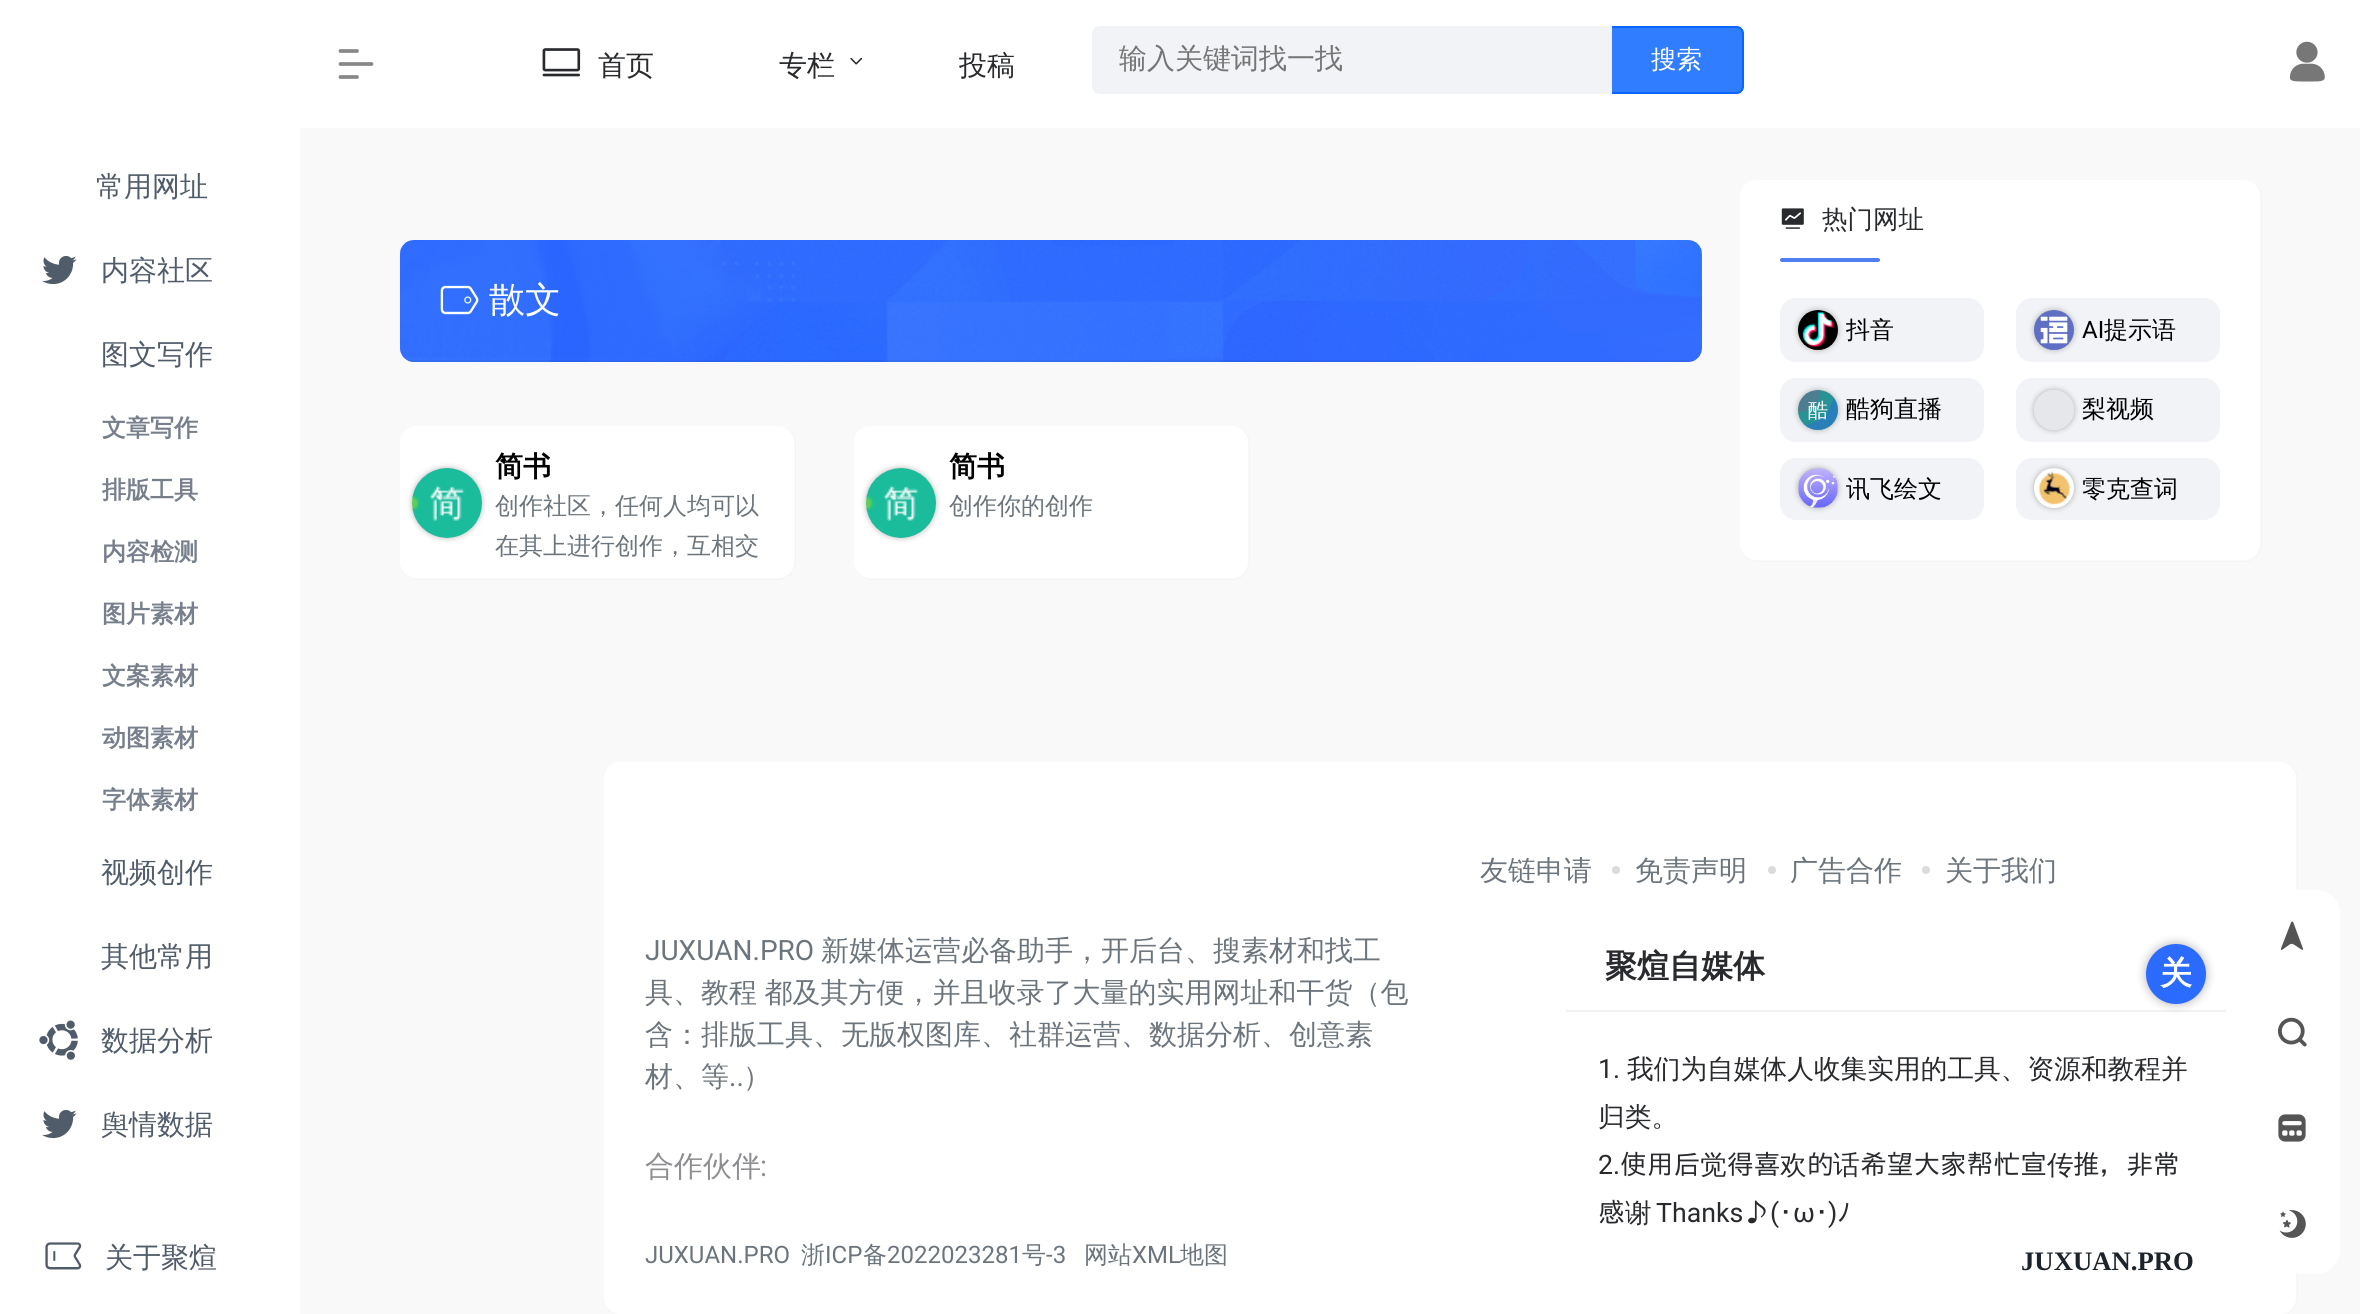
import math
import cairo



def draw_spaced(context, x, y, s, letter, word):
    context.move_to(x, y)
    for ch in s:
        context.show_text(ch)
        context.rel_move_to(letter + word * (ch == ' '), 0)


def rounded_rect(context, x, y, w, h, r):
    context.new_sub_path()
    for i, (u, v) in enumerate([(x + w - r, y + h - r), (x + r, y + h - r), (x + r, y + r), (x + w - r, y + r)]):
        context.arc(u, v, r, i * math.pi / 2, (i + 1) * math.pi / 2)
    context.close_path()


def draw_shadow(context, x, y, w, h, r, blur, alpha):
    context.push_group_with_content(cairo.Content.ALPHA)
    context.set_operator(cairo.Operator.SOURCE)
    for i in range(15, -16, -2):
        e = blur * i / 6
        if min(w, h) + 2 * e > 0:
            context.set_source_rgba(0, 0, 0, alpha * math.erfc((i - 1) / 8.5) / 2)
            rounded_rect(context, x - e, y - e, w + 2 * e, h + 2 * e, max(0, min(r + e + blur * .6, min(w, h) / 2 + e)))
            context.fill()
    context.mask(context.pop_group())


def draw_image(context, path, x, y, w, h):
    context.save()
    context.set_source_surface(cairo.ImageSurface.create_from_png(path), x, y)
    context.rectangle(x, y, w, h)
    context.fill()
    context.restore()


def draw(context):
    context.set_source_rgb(249 / 255, 249 / 255, 249 / 255)
    context.paint()
    context.set_source_rgb(1, 1, 1)
    context.rectangle(0, 0, 300, 1314)
    context.fill()
    draw_image(context, "images/1.png", 42, 255, 35, 30)
    draw_image(context, "images/2.png", 39, 1020, 39, 40)
    draw_image(context, "images/1.png", 42, 1109, 35, 30)
    draw_image(context, "images/3.png", 45, 1242, 37, 28)
    context.rectangle(300, 0, 2060, 128)
    context.fill()
    context.new_path()
    context.move_to(340.5, 51)
    context.line_to(357, 51)
    context.move_to(340.5, 64)
    context.line_to(371.5, 64)
    context.move_to(340.5, 77)
    context.line_to(357, 77)
    context.set_source_rgb(136 / 255, 136 / 255, 136 / 255)
    context.set_line_width(3.8)
    context.set_line_cap(cairo.LineCap.ROUND)
    context.set_line_join(cairo.LineJoin.ROUND)
    context.stroke()
    draw_image(context, "images/4.png", 542, 48, 39, 29)
    draw_image(context, "images/5.png", 850, 57, 13, 8)
    context.set_source_rgb(48 / 255, 125 / 255, 1)
    context.new_path()
    context.move_to(1608, 26)
    context.line_to(1736, 26)
    context.curve_to(1740.5, 26, 1744, 29.5, 1744, 34)
    context.line_to(1744, 86)
    context.curve_to(1744, 90.5, 1740.5, 94, 1736, 94)
    context.line_to(1608, 94)
    context.close_path()
    context.fill()
    context.new_path()
    context.move_to(1609, 27)
    context.line_to(1736, 27)
    context.curve_to(1740, 27, 1743, 30, 1743, 34)
    context.line_to(1743, 86)
    context.curve_to(1743, 90, 1740, 93, 1736, 93)
    context.line_to(1609, 93)
    context.close_path()
    context.set_source_rgba(3 / 255, 97 / 255, 1, 0.82)
    context.set_line_width(2)
    context.set_line_cap(cairo.LineCap.BUTT)
    context.set_line_join(cairo.LineJoin.MITER)
    context.stroke()
    context.set_source_rgb(241 / 255, 243 / 255, 246 / 255)
    context.new_path()
    context.move_to(1100, 27)
    context.line_to(1611, 27)
    context.line_to(1611, 93)
    context.line_to(1100, 93)
    context.curve_to(1096, 93, 1093, 90, 1093, 86)
    context.line_to(1093, 34)
    context.curve_to(1093, 30, 1096, 27, 1100, 27)
    context.close_path()
    context.fill_preserve()
    context.stroke()
    draw_image(context, "images/6.png", 2289, 41, 36, 41)
    draw_image(context, "images/7.png", 400, 240, 1302, 122)
    context.set_source_rgba(0, 0, 0, 0.05)
    context.rectangle(408, 360, 1288, 2)
    context.fill()
    draw_image(context, "images/8.png", 440, 285, 39, 30)
    rounded_rect(context, 400.5, 426.5, 395, 153, 17.5)
    context.set_source_rgb(244 / 255, 244 / 255, 244 / 255)
    context.set_line_width(1)
    context.stroke()
    context.set_source_rgb(1, 1, 1)
    rounded_rect(context, 400, 426, 394, 152, 16)
    context.fill()
    context.set_source_rgb(0, 0, 0)
    draw_shadow(context, 412, 468, 70, 70, 35, 3, 0.28)
    context.set_source_rgba(128 / 255, 128 / 255, 128 / 255, 0.1)
    context.arc(447, 503, 35, 0, 2 * math.pi)
    context.fill()
    draw_image(context, "images/9.png", 412, 468, 70, 70)
    rounded_rect(context, 854.5, 426.5, 395, 153, 17.5)
    context.set_source_rgb(244 / 255, 244 / 255, 244 / 255)
    context.stroke()
    context.set_source_rgb(1, 1, 1)
    rounded_rect(context, 854, 426, 394, 152, 16)
    context.fill()
    context.set_source_rgb(0, 0, 0)
    draw_shadow(context, 866, 468, 70, 70, 35, 3, 0.28)
    context.set_source_rgba(128 / 255, 128 / 255, 128 / 255, 0.1)
    context.arc(901, 503, 35, 0, 2 * math.pi)
    context.fill()
    draw_image(context, "images/9.png", 866, 468, 70, 70)
    rounded_rect(context, 1740.5, 180.5, 521, 381, 17.5)
    context.set_source_rgb(244 / 255, 244 / 255, 244 / 255)
    context.stroke()
    context.set_source_rgb(1, 1, 1)
    rounded_rect(context, 1740, 180, 520, 380, 16)
    context.fill()
    draw_image(context, "images/10.png", 1781, 208, 23, 21)
    context.set_source_rgb(79 / 255, 127 / 255, 239 / 255)
    rounded_rect(context, 1780, 258, 100, 4, 2)
    context.fill()
    context.set_source_rgb(241 / 255, 243 / 255, 246 / 255)
    rounded_rect(context, 1781, 299, 202, 62, 15)
    context.fill_preserve()
    context.set_line_width(2)
    context.stroke()
    context.set_source_rgb(0, 0, 0)
    draw_shadow(context, 1798, 310, 40, 40, 20, 3, 0.28)
    context.set_source_rgba(128 / 255, 128 / 255, 128 / 255, 0.1)
    context.arc(1818, 330, 20, 0, 2 * math.pi)
    context.fill()
    draw_image(context, "images/11.png", 1798, 310, 40, 40)
    context.set_source_rgb(241 / 255, 243 / 255, 246 / 255)
    rounded_rect(context, 2017, 299, 202, 62, 15)
    context.fill_preserve()
    context.stroke()
    context.set_source_rgb(0, 0, 0)
    draw_shadow(context, 2034, 310, 40, 40, 20, 3, 0.28)
    context.set_source_rgba(128 / 255, 128 / 255, 128 / 255, 0.1)
    context.arc(2054, 330, 20, 0, 2 * math.pi)
    context.fill()
    draw_image(context, "images/12.png", 2034, 310, 40, 40)
    context.set_source_rgb(241 / 255, 243 / 255, 246 / 255)
    rounded_rect(context, 1781, 379, 202, 62, 15)
    context.fill_preserve()
    context.stroke()
    context.set_source_rgb(0, 0, 0)
    draw_shadow(context, 1798, 390, 40, 40, 20, 3, 0.28)
    context.set_source_rgba(128 / 255, 128 / 255, 128 / 255, 0.1)
    context.arc(1818, 410, 20, 0, 2 * math.pi)
    context.fill()
    draw_image(context, "images/13.png", 1798, 390, 40, 40)
    context.set_source_rgb(241 / 255, 243 / 255, 246 / 255)
    rounded_rect(context, 2017, 379, 202, 62, 15)
    context.fill_preserve()
    context.stroke()
    context.save()
    context.set_fill_rule(cairo.FillRule.EVEN_ODD)
    context.new_path()
    context.move_to(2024, 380)
    context.line_to(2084, 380)
    context.line_to(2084, 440)
    context.line_to(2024, 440)
    context.close_path()
    context.move_to(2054, 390)
    context.curve_to(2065, 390, 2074, 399, 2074, 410)
    context.curve_to(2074, 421, 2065, 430, 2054, 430)
    context.curve_to(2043, 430, 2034, 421, 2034, 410)
    context.curve_to(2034, 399, 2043, 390, 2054, 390)
    context.close_path()
    context.clip()
    context.set_source_rgb(0, 0, 0)
    draw_shadow(context, 2034, 390, 40, 40, 20, 3, 0.28)
    context.restore()
    context.set_source_rgba(128 / 255, 128 / 255, 128 / 255, 0.1)
    context.arc(2054, 410, 20, 0, 2 * math.pi)
    context.fill()
    context.set_source_rgb(241 / 255, 243 / 255, 246 / 255)
    rounded_rect(context, 1781, 459, 202, 60, 15)
    context.fill_preserve()
    context.stroke()
    context.set_source_rgb(0, 0, 0)
    draw_shadow(context, 1798, 468, 40, 40, 20, 3, 0.28)
    context.set_source_rgba(128 / 255, 128 / 255, 128 / 255, 0.1)
    context.arc(1818, 488, 20, 0, 2 * math.pi)
    context.fill()
    draw_image(context, "images/14.png", 1798, 468, 40, 40)
    context.set_source_rgb(241 / 255, 243 / 255, 246 / 255)
    rounded_rect(context, 2017, 459, 202, 60, 15)
    context.fill_preserve()
    context.stroke()
    context.set_source_rgb(0, 0, 0)
    draw_shadow(context, 2034, 468, 40, 40, 20, 3, 0.28)
    context.set_source_rgba(128 / 255, 128 / 255, 128 / 255, 0.1)
    context.arc(2054, 488, 20, 0, 2 * math.pi)
    context.fill()
    draw_image(context, "images/15.png", 2034, 468, 40, 40)
    rounded_rect(context, 604.5, 762.5, 1693, 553, 17.5)
    context.set_source_rgb(244 / 255, 244 / 255, 244 / 255)
    context.set_line_width(1)
    context.stroke()
    context.set_source_rgb(1, 1, 1)
    rounded_rect(context, 604, 762, 1692, 552, 16)
    context.fill()
    context.set_source_rgb(219 / 255, 219 / 255, 219 / 255)
    context.arc(1616, 870, 4, 0, 2 * math.pi)
    context.fill()
    context.arc(1772, 870, 4, 0, 2 * math.pi)
    context.fill()
    context.arc(1926, 870, 4, 0, 2 * math.pi)
    context.fill()
    context.set_source_rgb(242 / 255, 242 / 255, 242 / 255)
    context.rectangle(1566, 1010, 660, 2)
    context.fill()
    context.set_source_rgb(0, 0, 0)
    draw_shadow(context, 2146, 944, 60, 60, 30, 5, 0.3)
    context.set_source_rgb(44 / 255, 107 / 255, 1)
    context.arc(2176, 974, 30, 0, 2 * math.pi)
    context.fill()
    context.set_source_rgb(1, 1, 1)
    rounded_rect(context, 2244, 890, 96, 384, 24)
    context.fill()
    draw_image(context, "images/16.png", 2280, 921, 23, 29)
    draw_image(context, "images/17.png", 2278, 1017, 29, 30)
    draw_image(context, "images/18.png", 2278, 1114, 28, 28)
    draw_image(context, "images/19.png", 2279, 1210, 27, 28)
    context.select_font_face("WenQuanYi Zen Hei Medium")
    context.set_font_size(28)
    context.set_source_rgb(81 / 255, 92 / 255, 107 / 255)
    context.move_to(96, 196)
    context.show_text("常用网址")
    context.move_to(101, 280)
    context.show_text("内容社区")
    context.move_to(101, 364)
    context.show_text("图文写作")
    context.select_font_face("WenQuanYi Zen Hei", cairo.FontSlant.NORMAL, cairo.FontWeight.BOLD)
    context.set_font_size(24)
    context.set_source_rgb(119 / 255, 127 / 255, 141 / 255)
    context.move_to(102, 436)
    context.show_text("文章写作")
    context.move_to(102, 498)
    context.show_text("排版工具")
    context.move_to(102, 560)
    context.show_text("内容检测")
    context.move_to(102, 622)
    context.show_text("图片素材")
    context.move_to(102, 684)
    context.show_text("文案素材")
    context.move_to(102, 746)
    context.show_text("动图素材")
    context.move_to(102, 808)
    context.show_text("字体素材")
    context.select_font_face("WenQuanYi Zen Hei Medium")
    context.set_font_size(28)
    context.set_source_rgb(81 / 255, 92 / 255, 107 / 255)
    context.move_to(101, 882)
    context.show_text("视频创作")
    context.move_to(101, 966)
    context.show_text("其他常用")
    context.move_to(101, 1050)
    context.show_text("数据分析")
    context.move_to(101, 1134)
    context.show_text("舆情数据")
    context.move_to(105, 1267)
    context.show_text("关于聚煊")
    context.set_source_rgb(40 / 255, 42 / 255, 45 / 255)
    context.move_to(598, 75)
    context.show_text("首页")
    context.move_to(779, 75)
    context.show_text("专栏")
    context.move_to(959, 75)
    context.show_text("投稿")
    context.set_source_rgb(117 / 255, 117 / 255, 117 / 255)
    context.move_to(1119, 68)
    context.show_text("输入关键词找一找")
    context.set_font_size(25.5)
    context.set_source_rgb(1, 1, 1)
    context.move_to(1651, 68)
    context.show_text("搜索")
    context.set_font_size(36)
    context.move_to(489, 312)
    context.show_text("散文")
    context.select_font_face("WenQuanYi Zen Hei", cairo.FontSlant.NORMAL, cairo.FontWeight.BOLD)
    context.set_font_size(28)
    context.set_source_rgb(0, 0, 0)
    context.move_to(495, 476)
    context.show_text("简书")
    context.select_font_face("WenQuanYi Zen Hei Medium")
    context.set_font_size(24)
    context.set_source_rgb(108 / 255, 117 / 255, 125 / 255)
    context.move_to(495, 514)
    context.show_text("创作社区，任何人均可以")
    context.move_to(495, 554)
    context.show_text("在其上进行创作，互相交")
    context.select_font_face("WenQuanYi Zen Hei", cairo.FontSlant.NORMAL, cairo.FontWeight.BOLD)
    context.set_font_size(28)
    context.set_source_rgb(0, 0, 0)
    context.move_to(949, 476)
    context.show_text("简书")
    context.select_font_face("WenQuanYi Zen Hei Medium")
    context.set_font_size(24)
    context.set_source_rgb(108 / 255, 117 / 255, 125 / 255)
    context.move_to(949, 514)
    context.show_text("创作你的创作")
    context.set_font_size(25.5)
    context.set_source_rgb(40 / 255, 42 / 255, 45 / 255)
    context.move_to(1822, 228)
    context.show_text("热门网址")
    context.set_font_size(24)
    context.set_source_rgb(0, 0, 0)
    context.move_to(1846, 338)
    context.show_text("抖音")
    context.select_font_face("Roboto")
    context.move_to(2082, 338)
    context.show_text("AI")
    context.select_font_face("WenQuanYi Zen Hei Medium")
    context.move_to(2104, 338)
    context.show_text("提示语")
    context.move_to(1846, 417)
    context.show_text("酷狗直播")
    context.move_to(2082, 417)
    context.show_text("梨视频")
    context.move_to(1846, 497)
    context.show_text("讯飞绘文")
    context.move_to(2082, 497)
    context.show_text("零克查词")
    context.set_font_size(28)
    context.set_source_rgb(108 / 255, 117 / 255, 125 / 255)
    context.move_to(1480, 880)
    context.show_text("友链申请")
    context.move_to(1635, 880)
    context.show_text("免责声明")
    context.move_to(1790, 880)
    context.show_text("广告合作")
    context.move_to(1945, 880)
    context.show_text("关于我们")
    context.select_font_face("Roboto")
    context.move_to(645, 960)
    context.show_text("JUXUAN.PRO")
    context.select_font_face("WenQuanYi Zen Hei Medium")
    context.move_to(821, 960)
    context.show_text("新媒体运营必备助手，开后台、搜素材和找工")
    draw_spaced(context, 645, 1002, "具、教程 都及其方便，并且收录了大量的实用网址和干货（包", 0, -1)
    context.move_to(645, 1044)
    context.show_text("含：排版工具、无版权图库、社群运营、数据分析、创意素")
    context.move_to(645, 1086)
    context.show_text("材、等")
    context.select_font_face("Roboto")
    context.move_to(729, 1086)
    context.show_text("..")
    context.select_font_face("WenQuanYi Zen Hei Medium")
    context.move_to(743, 1086)
    context.show_text("）")
    context.set_font_size(29)
    context.set_source_rgb(141 / 255, 142 / 255, 145 / 255)
    context.move_to(645, 1176)
    context.show_text("合作伙伴")
    context.select_font_face("Roboto")
    context.move_to(760, 1176)
    context.show_text(":")
    context.set_font_size(24)
    context.set_source_rgb(108 / 255, 117 / 255, 125 / 255)
    context.move_to(645, 1263)
    context.show_text("JUXUAN.PRO")
    context.select_font_face("WenQuanYi Zen Hei Medium")
    context.move_to(801, 1263)
    context.show_text("浙")
    context.select_font_face("Roboto")
    context.move_to(825, 1263)
    context.show_text("ICP")
    context.select_font_face("WenQuanYi Zen Hei Medium")
    context.move_to(863, 1263)
    context.show_text("备")
    context.select_font_face("Roboto")
    context.move_to(887, 1263)
    context.show_text("2022023281")
    context.select_font_face("WenQuanYi Zen Hei Medium")
    context.move_to(1022, 1263)
    context.show_text("号")
    context.select_font_face("Roboto")
    context.move_to(1046, 1263)
    context.show_text("-3")
    context.select_font_face("WenQuanYi Zen Hei Medium")
    context.move_to(1084, 1263)
    context.show_text("网站")
    context.select_font_face("Roboto")
    context.move_to(1132, 1263)
    context.show_text("XML")
    context.select_font_face("WenQuanYi Zen Hei Medium")
    context.move_to(1180, 1263)
    context.show_text("地图")
    context.select_font_face("WenQuanYi Zen Hei", cairo.FontSlant.NORMAL, cairo.FontWeight.BOLD)
    context.set_font_size(32)
    context.set_source_rgb(40 / 255, 42 / 255, 45 / 255)
    context.move_to(1605, 977)
    context.show_text("聚煊自媒体")
    context.set_source_rgb(1, 1, 1)
    context.move_to(2160, 984)
    context.show_text("关")
    context.select_font_face("Roboto")
    context.set_font_size(26.7)
    context.set_source_rgb(40 / 255, 42 / 255, 45 / 255)
    context.move_to(1598, 1078)
    context.show_text("1.")
    context.select_font_face("WenQuanYi Zen Hei Medium")
    context.move_to(1627, 1078)
    context.show_text("我们为自媒体人收集实用的工具、资源和教程并")
    context.move_to(1598, 1126)
    context.show_text("归类。")
    context.select_font_face("Roboto")
    context.move_to(1598, 1174)
    context.show_text("2.")
    context.select_font_face("IPAGothic")
    context.move_to(1620, 1174)
    context.show_text("使用后")
    context.select_font_face("WenQuanYi Zen Hei Medium")
    context.move_to(1700, 1174)
    context.show_text("觉")
    context.select_font_face("IPAGothic")
    context.move_to(1727, 1174)
    context.show_text("得喜")
    context.select_font_face("WenQuanYi Zen Hei Medium")
    context.move_to(1780, 1174)
    context.show_text("欢")
    context.select_font_face("IPAGothic")
    context.move_to(1807, 1174)
    context.show_text("的")
    context.select_font_face("WenQuanYi Zen Hei Medium")
    context.move_to(1833, 1174)
    context.show_text("话")
    context.select_font_face("IPAGothic")
    context.move_to(1860, 1174)
    context.show_text("希望大家帮忙宣")
    context.select_font_face("WenQuanYi Zen Hei Medium")
    context.move_to(2047, 1174)
    context.show_text("传")
    context.select_font_face("IPAGothic")
    context.move_to(2073, 1174)
    context.show_text("推，非常")
    context.move_to(1598, 1222)
    context.show_text("感")
    context.select_font_face("WenQuanYi Zen Hei Medium")
    context.move_to(1625, 1222)
    context.show_text("谢")
    context.select_font_face("Roboto")
    context.move_to(1656, 1222)
    context.show_text("Thanks")
    context.select_font_face("IPAGothic")
    context.move_to(1743, 1222)
    context.show_text("♪")
    context.select_font_face("Roboto")
    context.move_to(1770, 1222)
    context.show_text("(")
    context.select_font_face("IPAGothic")
    context.move_to(1779, 1222)
    context.show_text("･")
    context.select_font_face("Roboto")
    context.move_to(1793, 1222)
    context.show_text("ω")
    context.select_font_face("IPAGothic")
    context.move_to(1815, 1222)
    context.show_text("･")
    context.select_font_face("Roboto")
    context.move_to(1828, 1222)
    context.show_text(")")
    context.select_font_face("IPAGothic")
    context.move_to(1837, 1222)
    context.show_text("ﾉ")
    context.select_font_face("Liberation Serif", cairo.FontSlant.NORMAL, cairo.FontWeight.BOLD)
    context.set_source_rgb(29 / 255, 35 / 255, 43 / 255)
    context.move_to(2021, 1270)
    context.show_text("JUXUAN.PRO")


surface = cairo.ImageSurface(cairo.Format.RGB24, 2360, 1314)
context = cairo.Context(surface)
options = cairo.FontOptions()
options.set_hint_metrics(cairo.HintMetrics.OFF)
options.set_hint_style(cairo.HintStyle.NONE)
context.set_font_options(options)
context.set_miter_limit(4)
draw(context)
surface.write_to_png("out.png")
